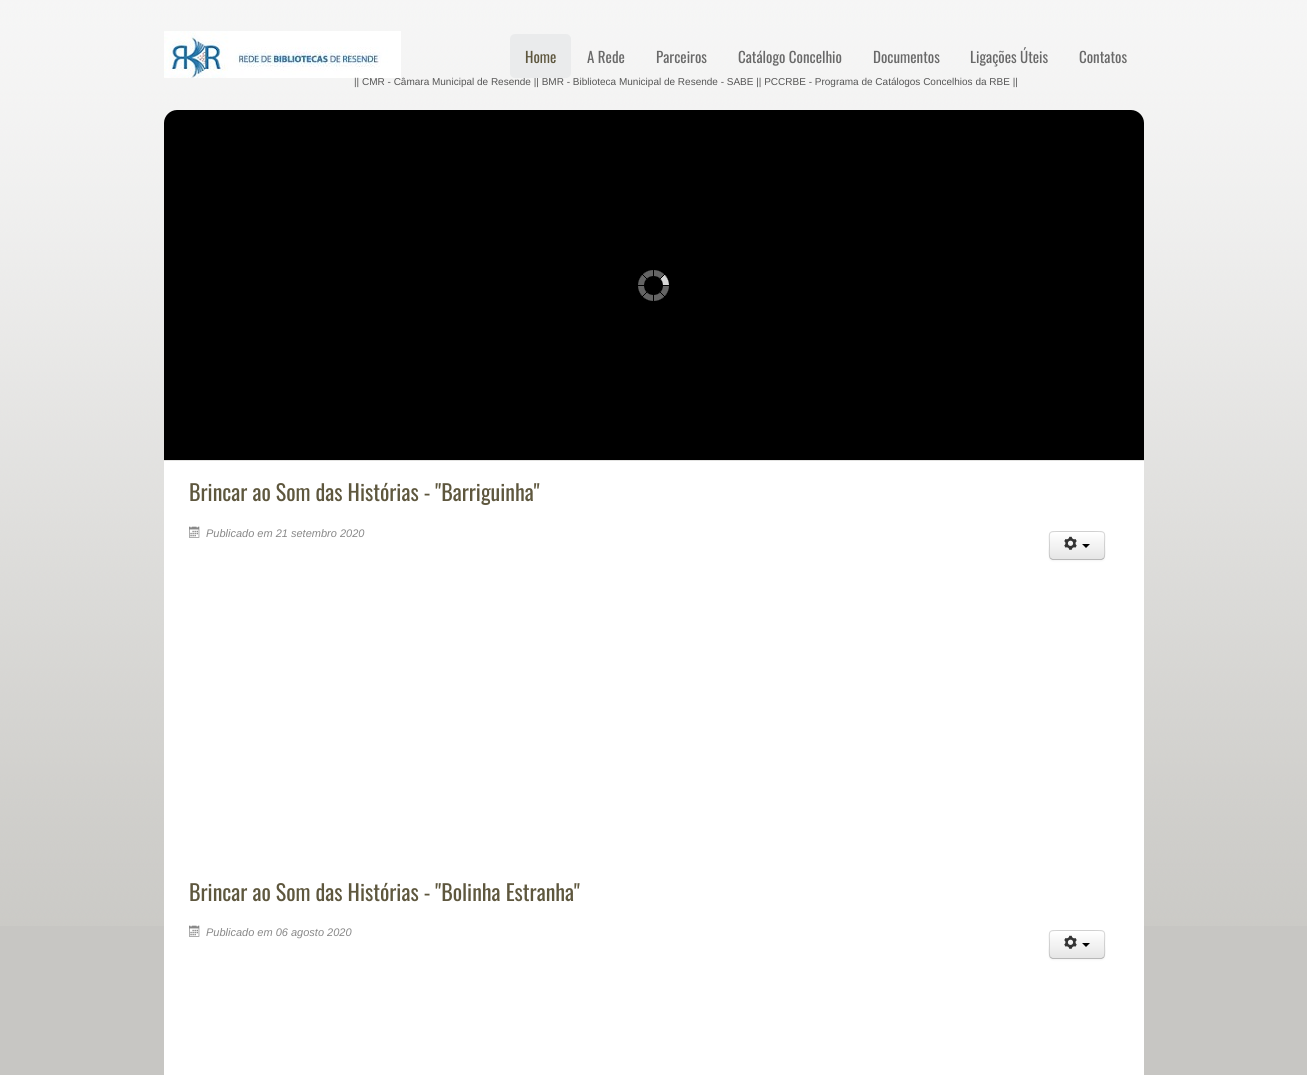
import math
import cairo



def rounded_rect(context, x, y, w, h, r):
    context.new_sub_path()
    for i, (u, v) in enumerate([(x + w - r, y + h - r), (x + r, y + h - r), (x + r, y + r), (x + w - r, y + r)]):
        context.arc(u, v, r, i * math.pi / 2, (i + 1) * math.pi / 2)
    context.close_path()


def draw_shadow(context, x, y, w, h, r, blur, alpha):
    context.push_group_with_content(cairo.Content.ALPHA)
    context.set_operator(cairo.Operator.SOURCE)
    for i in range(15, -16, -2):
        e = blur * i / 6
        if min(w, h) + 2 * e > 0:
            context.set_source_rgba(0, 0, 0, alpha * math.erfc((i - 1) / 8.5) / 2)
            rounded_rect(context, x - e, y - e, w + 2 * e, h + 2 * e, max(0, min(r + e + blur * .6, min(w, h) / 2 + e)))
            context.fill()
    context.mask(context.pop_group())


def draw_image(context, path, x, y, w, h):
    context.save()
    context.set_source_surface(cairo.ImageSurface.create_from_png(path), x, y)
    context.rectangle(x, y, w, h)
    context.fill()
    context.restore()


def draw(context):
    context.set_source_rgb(199 / 255, 198 / 255, 195 / 255)
    context.paint()
    draw_image(context, "images/1.png", 0, 0, 1307, 926)
    draw_image(context, "images/2.png", 164, 31, 237, 47)
    context.set_source_rgb(0, 0, 0)
    context.new_path()
    context.move_to(177, 110)
    context.line_to(1131, 110)
    context.curve_to(1138, 110, 1144, 116, 1144, 123)
    context.line_to(1144, 460)
    context.line_to(164, 460)
    context.line_to(164, 123)
    context.curve_to(164, 116, 170, 110, 177, 110)
    context.close_path()
    context.fill()
    draw_image(context, "images/3.png", 638, 270, 31, 31)
    context.set_source_rgb(1, 1, 1)
    context.rectangle(164, 461, 980, 614)
    context.fill()
    draw_image(context, "images/4.png", 189, 526, 11, 12)
    context.set_source_rgb(0, 0, 0)
    draw_shadow(context, 1049, 532, 56, 29, 4, 1, 0.05)
    context.set_source_rgb(245 / 255, 245 / 255, 245 / 255)
    rounded_rect(context, 1049, 531, 56, 29, 4)
    context.fill()
    context.save()
    rounded_rect(context, 1049, 531, 56, 29, 4)
    context.clip()
    gradient = cairo.LinearGradient(1077, 532, 1077, 559)
    gradient.add_color_stop_rgba(0, 1, 1, 1, 1)
    gradient.add_color_stop_rgba(1, 230 / 255, 230 / 255, 230 / 255, 1)
    context.set_source(gradient)
    context.rectangle(1049, 532, 56, 27)
    context.fill()
    context.restore()
    context.set_source_rgb(1, 1, 1)
    context.new_path()
    context.move_to(1053, 533)
    context.line_to(1101, 533)
    context.curve_to(1103, 533, 1104, 534, 1104, 536)
    context.curve_to(1104, 530, 1097, 532, 1093, 532)
    context.line_to(1061, 532)
    context.curve_to(1057, 532, 1050, 530, 1050, 536)
    context.curve_to(1050, 534, 1051, 533, 1053, 533)
    context.close_path()
    context.fill()
    context.new_path()
    context.move_to(1103.5, 558.5)
    context.line_to(1101.5, 559.5)
    context.line_to(1052.5, 559.5)
    context.line_to(1050.5, 558.5)
    context.set_source_rgba(0, 0, 0, 0.25)
    context.set_line_width(1)
    context.stroke()
    context.new_path()
    context.move_to(1050.5, 558.5)
    context.curve_to(1048.5, 556.5, 1049.5, 548, 1049.5, 545.5)
    context.curve_to(1049.5, 531, 1047, 531.5, 1061, 531.5)
    context.line_to(1093, 531.5)
    context.curve_to(1107, 531.5, 1104.5, 531, 1104.5, 545.5)
    context.curve_to(1104.5, 548, 1105.5, 556.5, 1103.5, 558.5)
    context.set_source_rgba(0, 0, 0, 0.15)
    context.stroke()
    draw_image(context, "images/5.png", 1064, 536, 13, 14)
    context.set_source_rgb(0, 0, 0)
    context.new_path()
    context.move_to(1082, 544)
    context.line_to(1090, 544)
    context.line_to(1086, 548)
    context.close_path()
    context.fill()
    draw_image(context, "images/4.png", 189, 925, 11, 12)
    context.set_source_rgb(0, 0, 0)
    draw_shadow(context, 1049, 931, 56, 29, 4, 1, 0.05)
    context.set_source_rgb(245 / 255, 245 / 255, 245 / 255)
    rounded_rect(context, 1049, 930, 56, 29, 4)
    context.fill()
    context.save()
    rounded_rect(context, 1049, 930, 56, 29, 4)
    context.clip()
    gradient = cairo.LinearGradient(1077, 931, 1077, 958)
    gradient.add_color_stop_rgba(0, 1, 1, 1, 1)
    gradient.add_color_stop_rgba(1, 230 / 255, 230 / 255, 230 / 255, 1)
    context.set_source(gradient)
    context.rectangle(1049, 931, 56, 27)
    context.fill()
    context.restore()
    context.set_source_rgb(1, 1, 1)
    context.new_path()
    context.move_to(1053, 932)
    context.line_to(1101, 932)
    context.curve_to(1103, 932, 1104, 933, 1104, 935)
    context.curve_to(1104, 929, 1097, 931, 1093, 931)
    context.line_to(1061, 931)
    context.curve_to(1057, 931, 1050, 929, 1050, 935)
    context.curve_to(1050, 933, 1051, 932, 1053, 932)
    context.close_path()
    context.fill()
    context.new_path()
    context.move_to(1103.5, 957.5)
    context.line_to(1101.5, 958.5)
    context.line_to(1052.5, 958.5)
    context.line_to(1050.5, 957.5)
    context.set_source_rgba(0, 0, 0, 0.25)
    context.stroke()
    context.new_path()
    context.move_to(1050.5, 957.5)
    context.curve_to(1048.5, 955.5, 1049.5, 947, 1049.5, 944.5)
    context.curve_to(1049.5, 930, 1047, 930.5, 1061, 930.5)
    context.line_to(1093, 930.5)
    context.curve_to(1107, 930.5, 1104.5, 930, 1104.5, 944.5)
    context.curve_to(1104.5, 947, 1105.5, 955.5, 1103.5, 957.5)
    context.set_source_rgba(0, 0, 0, 0.15)
    context.stroke()
    draw_image(context, "images/5.png", 1064, 935, 13, 14)
    context.set_source_rgb(0, 0, 0)
    context.new_path()
    context.move_to(1082, 943)
    context.line_to(1090, 943)
    context.line_to(1086, 947)
    context.close_path()
    context.fill()
    context.select_font_face("Oswald")
    context.set_font_size(15)
    context.set_source_rgb(105 / 255, 105 / 255, 105 / 255)
    context.move_to(587, 63)
    context.show_text("A Rede")
    context.move_to(656, 63)
    context.show_text("Parceiros")
    context.move_to(738, 63)
    context.show_text("Catálogo Concelhio")
    context.move_to(873, 63)
    context.show_text("Documentos")
    context.move_to(970, 63)
    context.show_text("Ligações Úteis")
    context.move_to(1079, 63)
    context.show_text("Contatos")
    context.select_font_face("Liberation Sans")
    context.set_font_size(10)
    context.set_source_rgb(85 / 255, 85 / 255, 85 / 255)
    context.move_to(354, 85)
    context.show_text("|| CMR - Câmara Municipal de Resende || BMR - Biblioteca Municipal de Resende - SABE || PCCRBE - Programa de Catálogos Concelhios da RBE ||")
    context.set_source_rgb(234 / 255, 235 / 255, 236 / 255)
    rounded_rect(context, 510, 34, 61, 44, 5)
    context.fill()
    context.select_font_face("Oswald")
    context.set_font_size(15)
    context.set_source_rgb(94 / 255, 87 / 255, 62 / 255)
    context.move_to(525, 63)
    context.show_text("Home")
    context.set_font_size(22)
    context.move_to(189, 501)
    context.show_text("Brincar ao Som das Histórias - \"Barriguinha\"")
    context.select_font_face("Liberation Sans", cairo.FontSlant.ITALIC)
    context.set_font_size(11)
    context.set_source_rgb(136 / 255, 136 / 255, 136 / 255)
    context.move_to(206, 537)
    context.show_text("Publicado em 21 setembro 2020")
    context.select_font_face("Oswald")
    context.set_font_size(22)
    context.set_source_rgb(94 / 255, 87 / 255, 62 / 255)
    context.move_to(189, 901)
    context.show_text("Brincar ao Som das Histórias - \"Bolinha Estranha\"")
    context.select_font_face("Liberation Sans", cairo.FontSlant.ITALIC)
    context.set_font_size(11)
    context.set_source_rgb(136 / 255, 136 / 255, 136 / 255)
    context.move_to(206, 936)
    context.show_text("Publicado em 06 agosto 2020")


surface = cairo.ImageSurface(cairo.Format.RGB24, 1307, 1075)
context = cairo.Context(surface)
options = cairo.FontOptions()
options.set_hint_metrics(cairo.HintMetrics.OFF)
options.set_hint_style(cairo.HintStyle.NONE)
context.set_font_options(options)
context.set_miter_limit(4)
draw(context)
surface.write_to_png("out.png")
